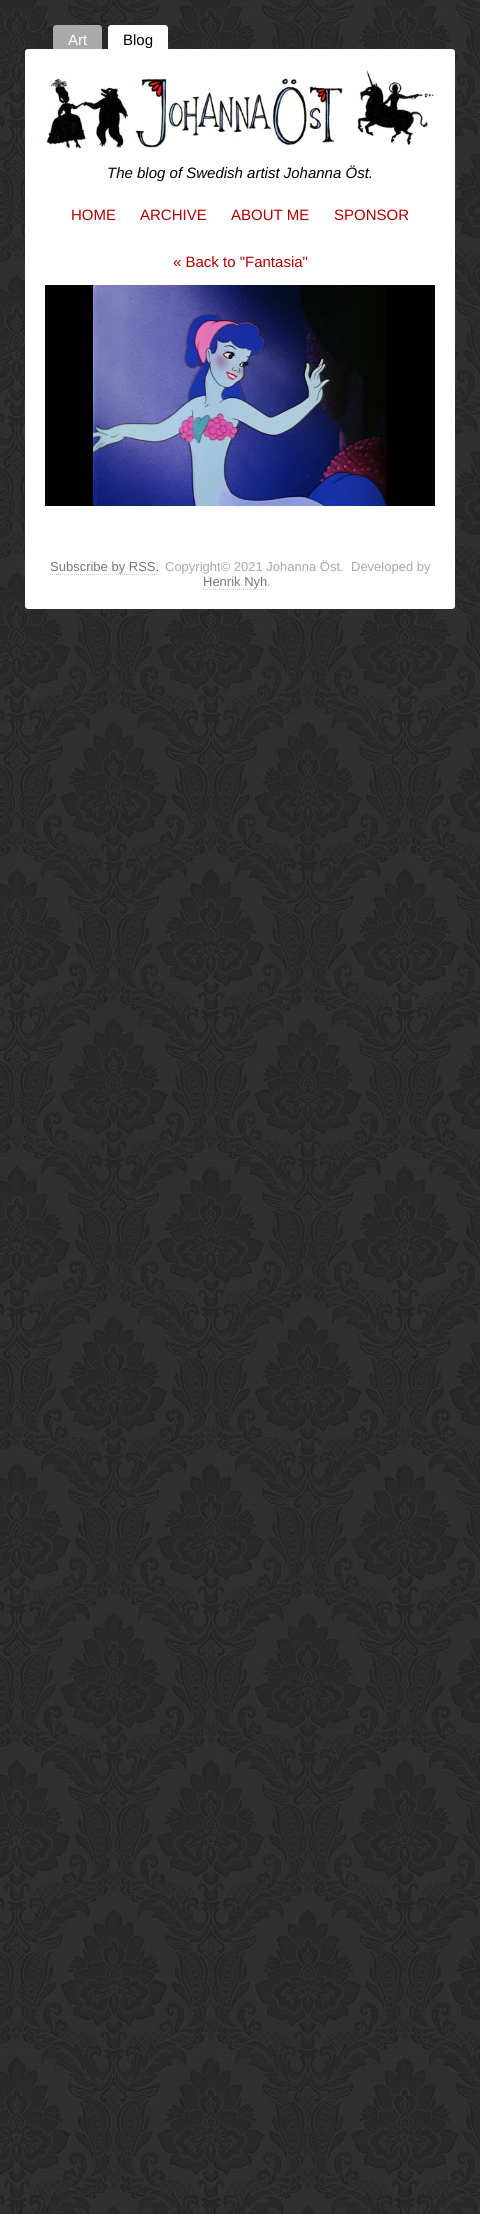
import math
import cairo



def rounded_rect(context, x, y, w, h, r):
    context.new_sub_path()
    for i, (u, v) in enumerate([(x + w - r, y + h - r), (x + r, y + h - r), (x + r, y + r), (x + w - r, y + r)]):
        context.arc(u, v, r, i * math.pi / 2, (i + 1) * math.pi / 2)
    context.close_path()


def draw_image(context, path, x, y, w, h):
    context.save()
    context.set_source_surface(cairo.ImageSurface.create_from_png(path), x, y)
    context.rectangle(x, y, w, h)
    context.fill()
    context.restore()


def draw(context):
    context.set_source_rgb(1, 1, 1)
    context.paint()
    draw_image(context, "images/1.png", 0, 0, 480, 2214)
    context.set_source_rgb(170 / 255, 170 / 255, 170 / 255)
    context.new_path()
    context.move_to(56, 25)
    context.line_to(99, 25)
    context.curve_to(100.5, 25, 102, 26.5, 102, 28)
    context.line_to(102, 49)
    context.line_to(53, 49)
    context.line_to(53, 28)
    context.curve_to(53, 26.5, 54.5, 25, 56, 25)
    context.close_path()
    context.fill()
    context.set_source_rgb(1, 1, 1)
    context.new_path()
    context.move_to(111, 25)
    context.line_to(165, 25)
    context.curve_to(166.5, 25, 168, 26.5, 168, 28)
    context.line_to(168, 49)
    context.line_to(108, 49)
    context.line_to(108, 28)
    context.curve_to(108, 26.5, 109.5, 25, 111, 25)
    context.close_path()
    context.fill()
    rounded_rect(context, 25, 49, 430, 560, 3)
    context.fill()
    draw_image(context, "images/2.png", 46, 70, 387, 79)
    draw_image(context, "images/3.png", 46, 77, 388, 71)
    draw_image(context, "images/4.png", 45, 285, 390, 221)
    context.new_path()
    context.move_to(50, 574.5)
    context.line_to(159, 574.5)
    context.set_source_rgb(204 / 255, 204 / 255, 204 / 255)
    context.set_line_width(1)
    context.set_dash([1, 1])
    context.stroke()
    context.new_path()
    context.move_to(203, 589.5)
    context.line_to(267, 589.5)
    context.stroke()
    context.select_font_face("Liberation Sans")
    context.set_font_size(15)
    context.set_source_rgb(1, 1, 1)
    context.move_to(68, 45)
    context.show_text("Art")
    context.set_source_rgb(0, 0, 0)
    context.move_to(123, 45)
    context.show_text("Blog")
    context.select_font_face("Liberation Sans", cairo.FontSlant.ITALIC)
    context.move_to(107, 178)
    context.show_text("The blog of Swedish artist Johanna Öst.")
    context.select_font_face("Liberation Sans")
    context.set_source_rgb(175 / 255, 1 / 255, 1 / 255)
    context.move_to(71, 220)
    context.show_text("HOME")
    context.move_to(140, 220)
    context.show_text("ARCHIVE")
    context.move_to(231, 220)
    context.show_text("ABOUT ME")
    context.move_to(334, 220)
    context.show_text("SPONSOR")
    context.move_to(173, 267)
    context.show_text("« Back to \"Fantasia\"")
    context.set_font_size(13)
    context.set_source_rgb(119 / 255, 119 / 255, 119 / 255)
    context.move_to(50, 571)
    context.show_text("Subscribe by RSS.")
    context.set_source_rgb(170 / 255, 170 / 255, 170 / 255)
    context.move_to(165, 571)
    context.show_text("Copyright© 2021 Johanna Öst.")
    context.move_to(351, 571)
    context.show_text("Developed by")
    context.set_source_rgb(119 / 255, 119 / 255, 119 / 255)
    context.move_to(203, 586)
    context.show_text("Henrik Nyh")
    context.set_source_rgb(170 / 255, 170 / 255, 170 / 255)
    context.move_to(267, 586)
    context.show_text(".")


surface = cairo.ImageSurface(cairo.Format.RGB24, 480, 2214)
context = cairo.Context(surface)
options = cairo.FontOptions()
options.set_hint_metrics(cairo.HintMetrics.OFF)
options.set_hint_style(cairo.HintStyle.NONE)
context.set_font_options(options)
context.set_miter_limit(4)
draw(context)
surface.write_to_png("out.png")
